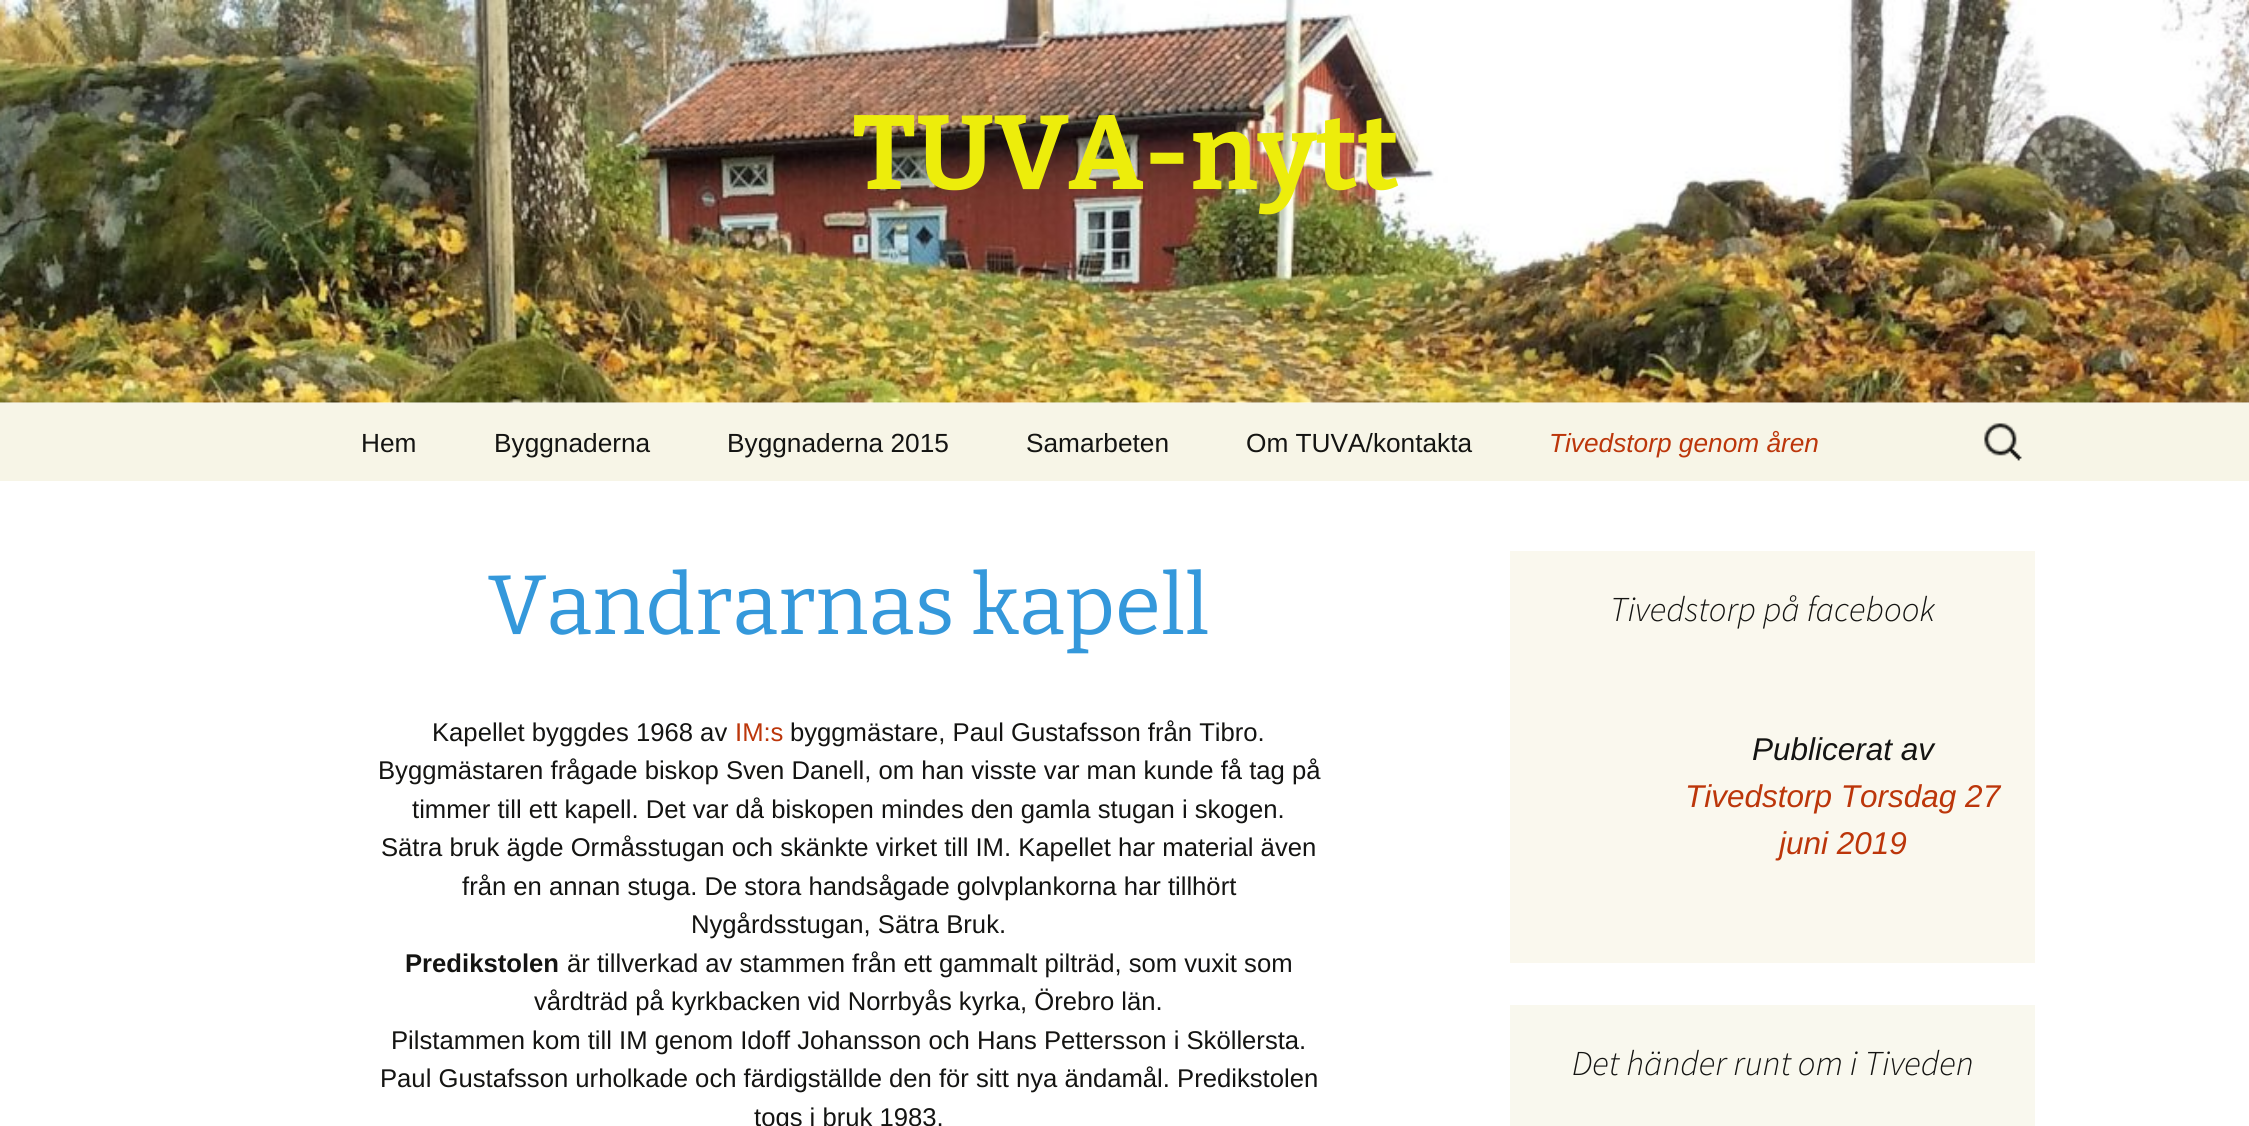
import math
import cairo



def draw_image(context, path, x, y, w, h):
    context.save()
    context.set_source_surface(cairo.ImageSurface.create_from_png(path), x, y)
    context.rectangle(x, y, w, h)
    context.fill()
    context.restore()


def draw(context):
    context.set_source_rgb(1, 1, 1)
    context.paint()
    draw_image(context, "images/1.png", 0, 0, 2249, 403)
    context.set_source_rgb(247 / 255, 245 / 255, 231 / 255)
    context.rectangle(0, 403, 2249, 78)
    context.fill()
    draw_image(context, "images/2.png", 1984, 423, 38, 38)
    context.set_source_rgb(250 / 255, 248 / 255, 238 / 255)
    context.rectangle(1510, 551, 525, 412)
    context.fill()
    context.set_source_rgb(249 / 255, 248 / 255, 238 / 255)
    context.rectangle(1510, 1005, 525, 121)
    context.fill()
    context.select_font_face("Bitter", cairo.FontSlant.NORMAL, cairo.FontWeight.BOLD)
    context.set_font_size(105)
    context.set_source_rgb(237 / 255, 237 / 255, 11 / 255)
    context.move_to(852, 189)
    context.show_text("TUVA-nytt")
    context.select_font_face("Liberation Sans")
    context.set_font_size(26.25)
    context.set_source_rgb(20 / 255, 20 / 255, 18 / 255)
    context.move_to(361, 452)
    context.show_text("Hem")
    context.move_to(494, 452)
    context.show_text("Byggnaderna")
    context.move_to(727, 452)
    context.show_text("Byggnaderna 2015")
    context.move_to(1026, 452)
    context.show_text("Samarbeten")
    context.move_to(1246, 452)
    context.show_text("Om TUVA/kontakta")
    context.select_font_face("Liberation Sans", cairo.FontSlant.ITALIC)
    context.set_source_rgb(188 / 255, 54 / 255, 10 / 255)
    context.move_to(1549, 452)
    context.show_text("Tivedstorp genom åren")
    context.select_font_face("Bitter")
    context.set_font_size(84)
    context.set_source_rgb(52 / 255, 152 / 255, 219 / 255)
    context.move_to(488, 634)
    context.show_text("Vandrarnas kapell")
    context.select_font_face("Liberation Sans")
    context.set_font_size(25.65)
    context.set_source_rgb(20 / 255, 20 / 255, 18 / 255)
    context.move_to(432, 741)
    context.show_text("Kapellet byggdes 1968 av")
    context.set_source_rgb(188 / 255, 54 / 255, 10 / 255)
    context.move_to(735, 741)
    context.show_text("IM:s")
    context.set_source_rgb(20 / 255, 20 / 255, 18 / 255)
    context.move_to(790, 741)
    context.show_text("byggmästare, Paul Gustafsson från Tibro.")
    context.move_to(378, 779)
    context.show_text("Byggmästaren frågade biskop Sven Danell, om han visste var man kunde få tag på")
    context.move_to(412, 818)
    context.show_text("timmer till ett kapell. Det var då biskopen mindes den gamla stugan i skogen.")
    context.move_to(381, 856)
    context.show_text("Sätra bruk ägde Ormåsstugan och skänkte virket till IM. Kapellet har material även")
    context.move_to(462, 895)
    context.show_text("från en annan stuga. De stora handsågade golvplankorna har tillhört")
    context.move_to(691, 933)
    context.show_text("Nygårdsstugan, Sätra Bruk.")
    context.select_font_face("Liberation Sans", cairo.FontSlant.NORMAL, cairo.FontWeight.BOLD)
    context.move_to(405, 972)
    context.show_text("Predikstolen")
    context.select_font_face("Liberation Sans")
    context.move_to(567, 972)
    context.show_text("är tillverkad av stammen från ett gammalt pilträd, som vuxit som")
    context.move_to(534, 1010)
    context.show_text("vårdträd på kyrkbacken vid Norrbyås kyrka, Örebro län.")
    context.move_to(391, 1049)
    context.show_text("Pilstammen kom till IM genom Idoff Johansson och Hans Pettersson i Sköllersta.")
    context.move_to(380, 1087)
    context.show_text("Paul Gustafsson urholkade och färdigställde den för sitt nya ändamål. Predikstolen")
    context.move_to(754, 1126)
    context.show_text("togs i bruk 1983.")
    context.select_font_face("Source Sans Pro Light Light", cairo.FontSlant.ITALIC)
    context.set_font_size(35)
    context.move_to(1610, 621)
    context.show_text("Tivedstorp på facebook")
    context.select_font_face("Liberation Sans", cairo.FontSlant.ITALIC)
    context.set_font_size(31.5)
    context.move_to(1752, 760)
    context.show_text("Publicerat av")
    context.set_source_rgb(188 / 255, 54 / 255, 10 / 255)
    context.move_to(1685, 807)
    context.show_text("Tivedstorp Torsdag 27")
    context.move_to(1779, 854)
    context.show_text("juni 2019")
    context.select_font_face("Source Sans Pro Light Light", cairo.FontSlant.ITALIC)
    context.set_font_size(35)
    context.set_source_rgb(20 / 255, 20 / 255, 18 / 255)
    context.move_to(1572, 1075)
    context.show_text("Det händer runt om i Tiveden")


surface = cairo.ImageSurface(cairo.Format.RGB24, 2249, 1126)
context = cairo.Context(surface)
options = cairo.FontOptions()
options.set_hint_metrics(cairo.HintMetrics.OFF)
options.set_hint_style(cairo.HintStyle.NONE)
context.set_font_options(options)
context.set_miter_limit(4)
draw(context)
surface.write_to_png("out.png")
